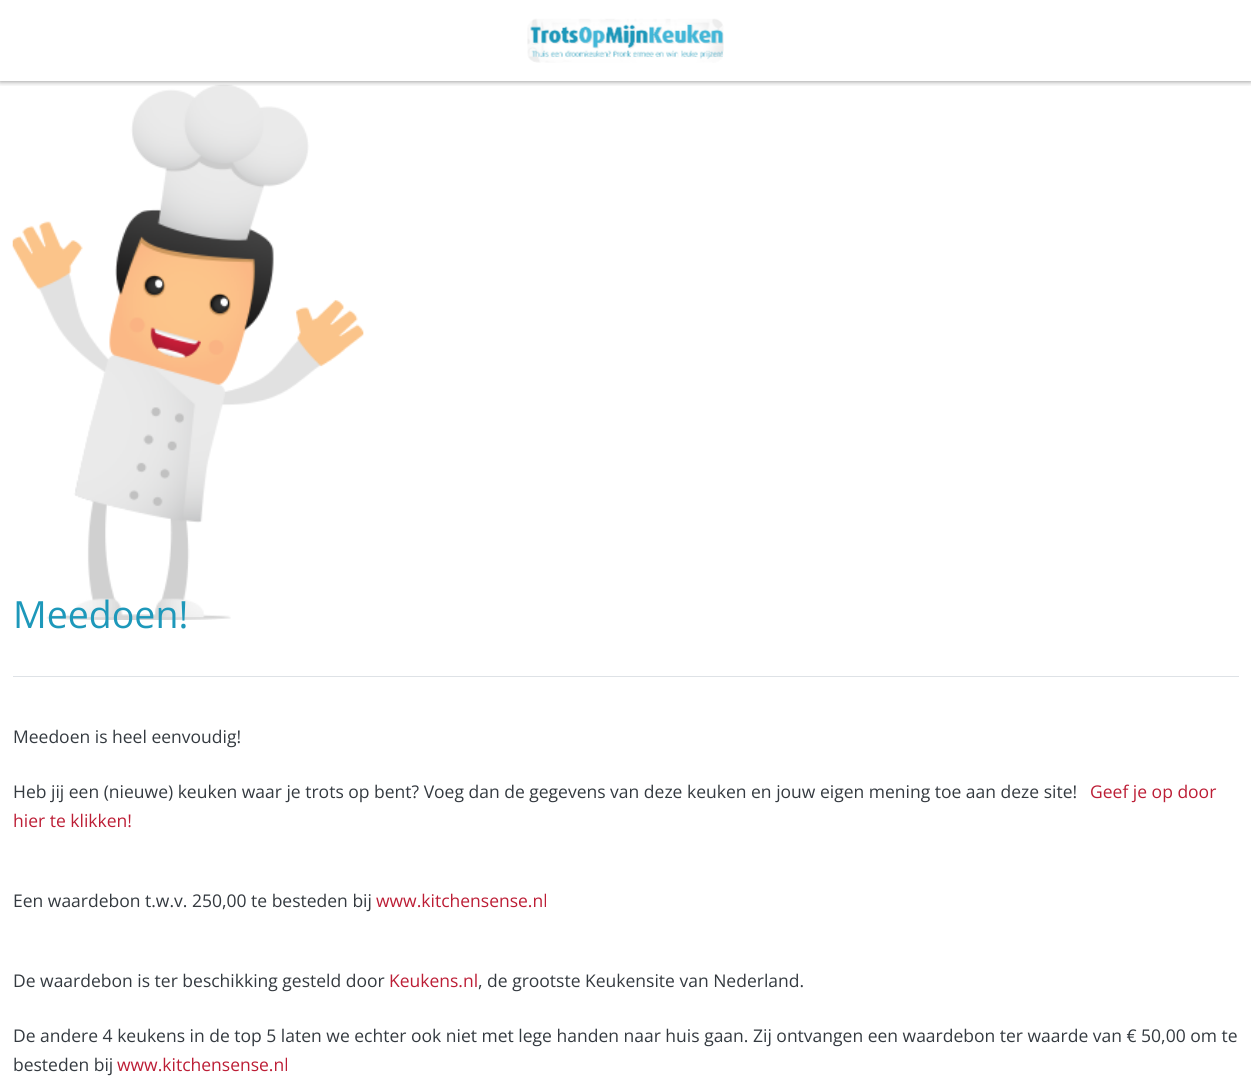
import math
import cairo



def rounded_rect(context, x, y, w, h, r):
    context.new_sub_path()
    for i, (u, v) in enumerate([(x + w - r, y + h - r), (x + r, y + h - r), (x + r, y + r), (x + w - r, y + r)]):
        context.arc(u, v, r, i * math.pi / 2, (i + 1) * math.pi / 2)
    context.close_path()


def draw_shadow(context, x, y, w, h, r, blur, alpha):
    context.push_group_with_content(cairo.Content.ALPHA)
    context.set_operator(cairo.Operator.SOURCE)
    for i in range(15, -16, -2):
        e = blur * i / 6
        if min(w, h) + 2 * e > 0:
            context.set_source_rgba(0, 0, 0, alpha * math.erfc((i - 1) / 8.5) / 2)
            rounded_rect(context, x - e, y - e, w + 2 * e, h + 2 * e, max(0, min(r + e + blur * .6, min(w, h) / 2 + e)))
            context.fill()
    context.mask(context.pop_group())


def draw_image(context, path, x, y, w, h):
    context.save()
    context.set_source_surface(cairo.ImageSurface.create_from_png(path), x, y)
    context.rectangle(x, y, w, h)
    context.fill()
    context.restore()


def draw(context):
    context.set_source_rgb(1, 1, 1)
    context.paint()
    draw_image(context, "images/2.png", 12, 84, 352, 536)
    context.save()
    context.rectangle(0, 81, 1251, 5)
    context.clip()
    context.set_source_rgb(0, 0, 0)
    draw_shadow(context, 0, 0, 1251, 81, 0, 3, 0.5)
    context.restore()
    draw_image(context, "images/1.png", 527, 18, 197, 45)
    context.set_source_rgb(222 / 255, 226 / 255, 230 / 255)
    context.rectangle(13, 676, 1226, 1)
    context.fill()
    context.select_font_face("Open Sans")
    context.set_font_size(37.5)
    context.set_source_rgb(29 / 255, 152 / 255, 186 / 255)
    context.move_to(13, 628)
    context.show_text("Meedoen!")
    context.set_font_size(17.5)
    context.set_source_rgb(52 / 255, 58 / 255, 64 / 255)
    context.move_to(13, 743)
    context.show_text("Meedoen is heel eenvoudig!")
    context.move_to(13, 798)
    context.show_text("Heb jij een (nieuwe) keuken waar je trots op bent? Voeg dan de gegevens van deze keuken en jouw eigen mening toe aan deze site!")
    context.set_source_rgb(188 / 255, 29 / 255, 53 / 255)
    context.move_to(1090, 798)
    context.show_text("Geef je op door")
    context.move_to(13, 827)
    context.show_text("hier te klikken!")
    context.set_source_rgb(52 / 255, 58 / 255, 64 / 255)
    context.move_to(13, 907)
    context.show_text("Een waardebon t.w.v. 250,00 te besteden bij")
    context.set_source_rgb(188 / 255, 29 / 255, 53 / 255)
    context.move_to(376, 907)
    context.show_text("www.kitchensense.nl")
    context.set_source_rgb(52 / 255, 58 / 255, 64 / 255)
    context.move_to(13, 987)
    context.show_text("De waardebon is ter beschikking gesteld door")
    context.set_source_rgb(188 / 255, 29 / 255, 53 / 255)
    context.move_to(389, 987)
    context.show_text("Keukens.nl")
    context.set_source_rgb(52 / 255, 58 / 255, 64 / 255)
    context.move_to(478, 987)
    context.show_text(", de grootste Keukensite van Nederland.")
    context.move_to(13, 1042)
    context.show_text("De andere 4 keukens in de top 5 laten we echter ook niet met lege handen naar huis gaan. Zij ontvangen een waardebon ter waarde van € 50,00 om te")
    context.move_to(13, 1071)
    context.show_text("besteden bij")
    context.set_source_rgb(188 / 255, 29 / 255, 53 / 255)
    context.move_to(117, 1071)
    context.show_text("www.kitchensense.nl")


surface = cairo.ImageSurface(cairo.Format.RGB24, 1251, 1087)
context = cairo.Context(surface)
options = cairo.FontOptions()
options.set_hint_metrics(cairo.HintMetrics.OFF)
options.set_hint_style(cairo.HintStyle.NONE)
context.set_font_options(options)
context.set_miter_limit(4)
draw(context)
surface.write_to_png("out.png")
